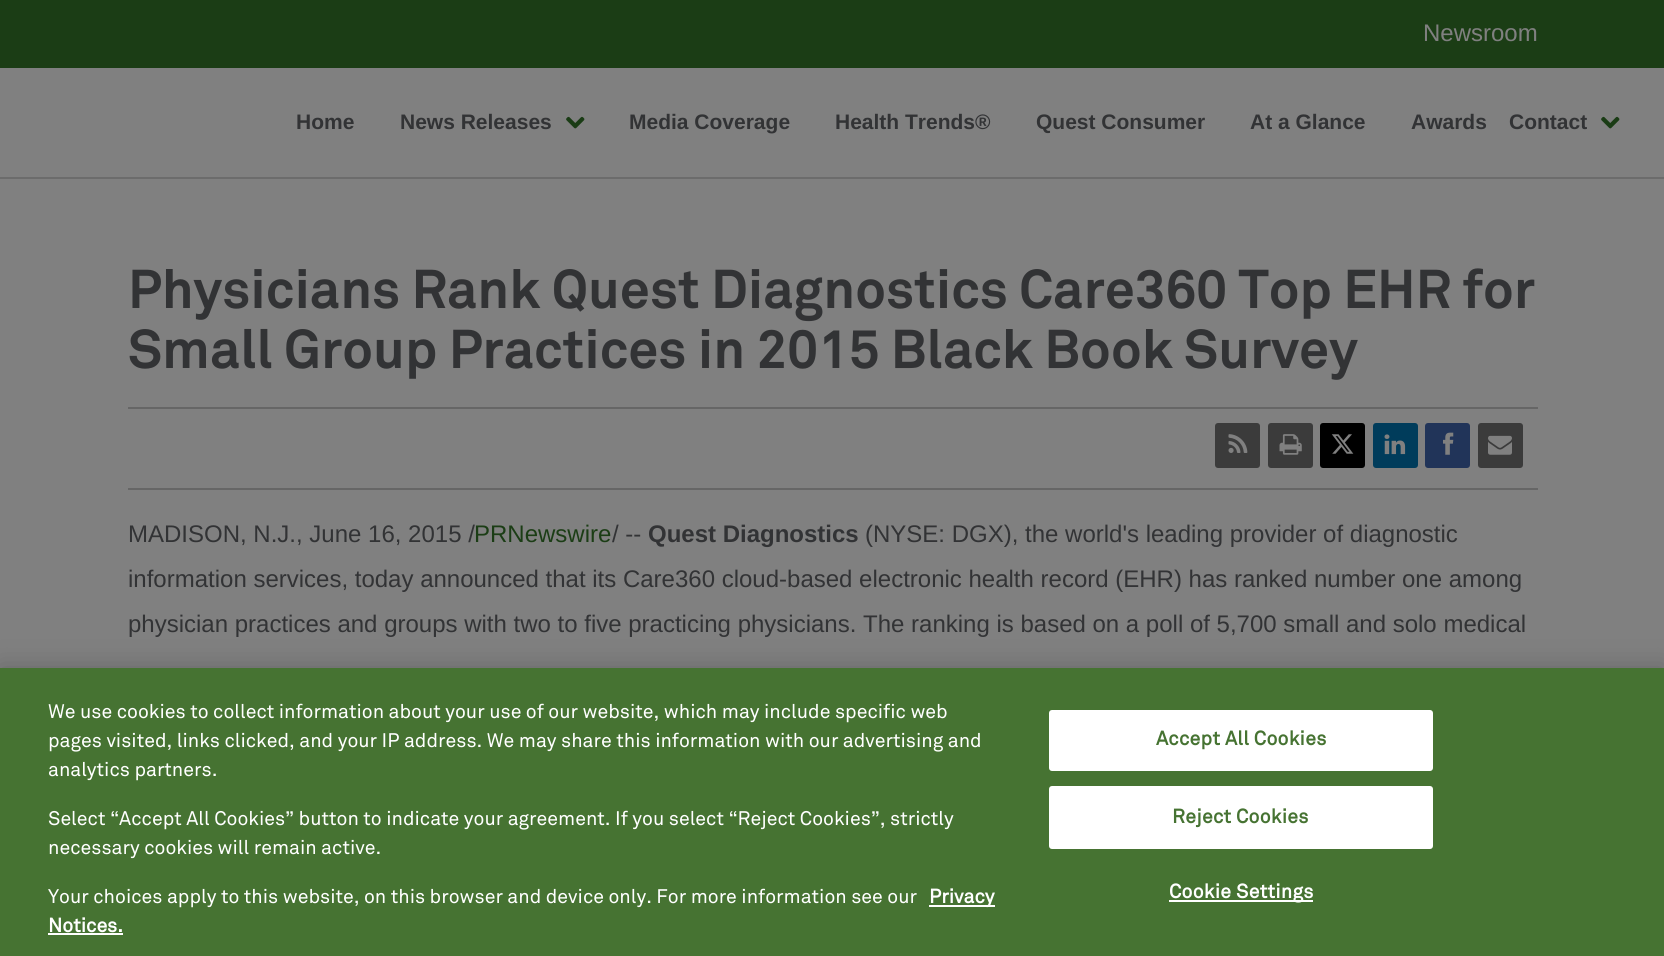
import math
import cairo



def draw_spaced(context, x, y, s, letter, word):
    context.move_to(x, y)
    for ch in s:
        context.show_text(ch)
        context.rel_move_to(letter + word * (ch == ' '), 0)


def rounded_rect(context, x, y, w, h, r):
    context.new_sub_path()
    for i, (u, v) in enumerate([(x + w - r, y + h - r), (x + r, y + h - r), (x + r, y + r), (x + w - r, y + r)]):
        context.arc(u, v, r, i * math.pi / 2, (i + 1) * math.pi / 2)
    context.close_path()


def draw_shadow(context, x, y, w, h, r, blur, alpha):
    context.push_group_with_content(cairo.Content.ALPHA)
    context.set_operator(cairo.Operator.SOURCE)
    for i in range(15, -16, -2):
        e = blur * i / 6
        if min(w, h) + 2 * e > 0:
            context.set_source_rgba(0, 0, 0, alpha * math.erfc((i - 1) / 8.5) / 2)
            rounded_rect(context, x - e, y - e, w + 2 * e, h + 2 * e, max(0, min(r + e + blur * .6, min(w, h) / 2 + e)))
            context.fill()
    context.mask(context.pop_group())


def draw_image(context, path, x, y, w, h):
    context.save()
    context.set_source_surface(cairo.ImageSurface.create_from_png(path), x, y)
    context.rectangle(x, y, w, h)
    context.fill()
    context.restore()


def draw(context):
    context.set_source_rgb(128 / 255, 128 / 255, 128 / 255)
    context.paint()
    context.set_source_rgb(27 / 255, 61 / 255, 21 / 255)
    context.rectangle(0, 0, 1664, 68)
    context.fill()
    context.set_source_rgb(108 / 255, 108 / 255, 108 / 255)
    context.rectangle(0, 177, 1664, 2)
    context.fill()
    draw_image(context, "images/1.png", 566, 116, 19, 13)
    draw_image(context, "images/1.png", 1601, 116, 19, 13)
    context.set_source_rgb(102 / 255, 102 / 255, 102 / 255)
    context.rectangle(128, 407, 1410, 2)
    context.fill()
    context.rectangle(128, 488, 1410, 2)
    context.fill()
    context.set_source_rgb(59 / 255, 59 / 255, 59 / 255)
    rounded_rect(context, 1215, 423, 45, 45, 3)
    context.fill()
    draw_image(context, "images/2.png", 1228, 434, 20, 19)
    rounded_rect(context, 1268, 423, 45, 45, 3)
    context.fill()
    draw_image(context, "images/3.png", 1279, 434, 23, 21)
    context.set_source_rgb(0, 0, 0)
    rounded_rect(context, 1320, 423, 45, 45, 3)
    context.fill()
    draw_image(context, "images/4.png", 1331, 434, 23, 20)
    context.set_source_rgb(0, 60 / 255, 91 / 255)
    rounded_rect(context, 1373, 423, 45, 45, 3)
    context.fill()
    draw_image(context, "images/5.png", 1384, 434, 22, 21)
    context.set_source_rgb(33 / 255, 52 / 255, 89 / 255)
    rounded_rect(context, 1425, 423, 45, 45, 3)
    context.fill()
    draw_image(context, "images/6.png", 1443, 432, 11, 23)
    context.set_source_rgb(59 / 255, 59 / 255, 59 / 255)
    rounded_rect(context, 1478, 423, 45, 45, 3)
    context.fill()
    draw_image(context, "images/7.png", 1488, 435, 24, 20)
    context.set_source_rgb(0, 0, 0)
    draw_shadow(context, 0, 668, 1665, 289, 0, 13.5, 0.2)
    context.set_source_rgb(70 / 255, 115 / 255, 50 / 255)
    context.rectangle(0, 668, 1664, 288)
    context.fill()
    context.set_source_rgb(1, 1, 1)
    context.rectangle(929, 905, 66, 2)
    context.fill()
    context.rectangle(48, 933, 75, 2)
    context.fill()
    rounded_rect(context, 1050, 711, 382, 59, 2)
    context.fill_preserve()
    context.stroke()
    rounded_rect(context, 1050, 787, 382, 61, 2)
    context.fill_preserve()
    context.stroke()
    context.rectangle(1169, 900, 144, 2)
    context.fill()
    context.select_font_face("Liberation Sans")
    context.set_font_size(24)
    context.set_source_rgb(128 / 255, 128 / 255, 128 / 255)
    context.move_to(1423, 41)
    context.show_text("Newsroom")
    context.select_font_face("Liberation Sans", cairo.FontSlant.NORMAL, cairo.FontWeight.BOLD)
    context.set_font_size(21)
    context.set_source_rgb(50 / 255, 51 / 255, 53 / 255)
    context.move_to(296, 129)
    context.show_text("Home")
    context.move_to(400, 129)
    context.show_text("News Releases")
    context.move_to(629, 129)
    context.show_text("Media Coverage")
    context.move_to(835, 129)
    context.show_text("Health Trends®")
    context.move_to(1036, 129)
    context.show_text("Quest Consumer")
    context.move_to(1250, 129)
    context.show_text("At a Glance")
    context.move_to(1411, 129)
    context.show_text("Awards")
    context.move_to(1509, 129)
    context.show_text("Contact")
    context.select_font_face("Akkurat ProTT", cairo.FontSlant.NORMAL, cairo.FontWeight.BOLD)
    context.set_font_size(54)
    context.move_to(128, 308)
    context.show_text("Physicians Rank Quest Diagnostics Care360 Top EHR for")
    context.move_to(128, 368)
    context.show_text("Small Group Practices in 2015 Black Book Survey")
    context.select_font_face("Liberation Sans")
    context.set_font_size(24)
    context.move_to(128, 542)
    context.show_text("MADISON, N.J., June 16, 2015 /")
    context.set_source_rgb(27 / 255, 61 / 255, 21 / 255)
    context.move_to(474, 542)
    context.show_text("PRNewswire")
    context.set_source_rgb(50 / 255, 51 / 255, 53 / 255)
    context.move_to(612, 542)
    context.show_text("/ --")
    context.select_font_face("Liberation Sans", cairo.FontSlant.NORMAL, cairo.FontWeight.BOLD)
    context.move_to(648, 542)
    context.show_text("Quest Diagnostics")
    context.select_font_face("Liberation Sans")
    context.move_to(865, 542)
    context.show_text("(NYSE: DGX), the world's leading provider of diagnostic")
    context.move_to(128, 587)
    context.show_text("information services, today announced that its Care360 cloud-based electronic health record (EHR) has ranked number one among")
    context.move_to(128, 632)
    context.show_text("physician practices and groups with two to five practicing physicians. The ranking is based on a poll of 5,700 small and solo medical")
    context.select_font_face("Akkurat ProTT")
    context.set_font_size(19.5)
    context.set_source_rgb(1, 1, 1)
    context.move_to(48, 718)
    context.show_text("We use cookies to collect information about your use of our website, which may include specific web")
    context.move_to(48, 747)
    context.show_text("pages visited, links clicked, and your IP address. We may share this information with our advertising and")
    context.move_to(48, 776)
    context.show_text("analytics partners.")
    context.move_to(48, 825)
    context.show_text("Select “Accept All Cookies” button to indicate your agreement. If you select “Reject Cookies”, strictly")
    context.move_to(48, 854)
    context.show_text("necessary cookies will remain active.")
    context.move_to(48, 903)
    context.show_text("Your choices apply to this website, on this browser and device only. For more information see our")
    context.select_font_face("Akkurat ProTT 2", cairo.FontSlant.NORMAL, cairo.FontWeight.BOLD)
    context.move_to(929, 903)
    context.show_text("Privacy")
    context.move_to(48, 932)
    context.show_text("Notices.")
    context.set_source_rgb(70 / 255, 115 / 255, 50 / 255)
    draw_spaced(context, 1156, 745, "Accept All Cookies", 0.25, 0)
    draw_spaced(context, 1172, 823, "Reject Cookies", 0.25, 0)
    context.set_source_rgb(1, 1, 1)
    draw_spaced(context, 1169, 898, "Cookie Settings", 0.25, 0)


surface = cairo.ImageSurface(cairo.Format.RGB24, 1664, 956)
context = cairo.Context(surface)
options = cairo.FontOptions()
options.set_hint_metrics(cairo.HintMetrics.OFF)
options.set_hint_style(cairo.HintStyle.NONE)
context.set_font_options(options)
context.set_miter_limit(4)
draw(context)
surface.write_to_png("out.png")
